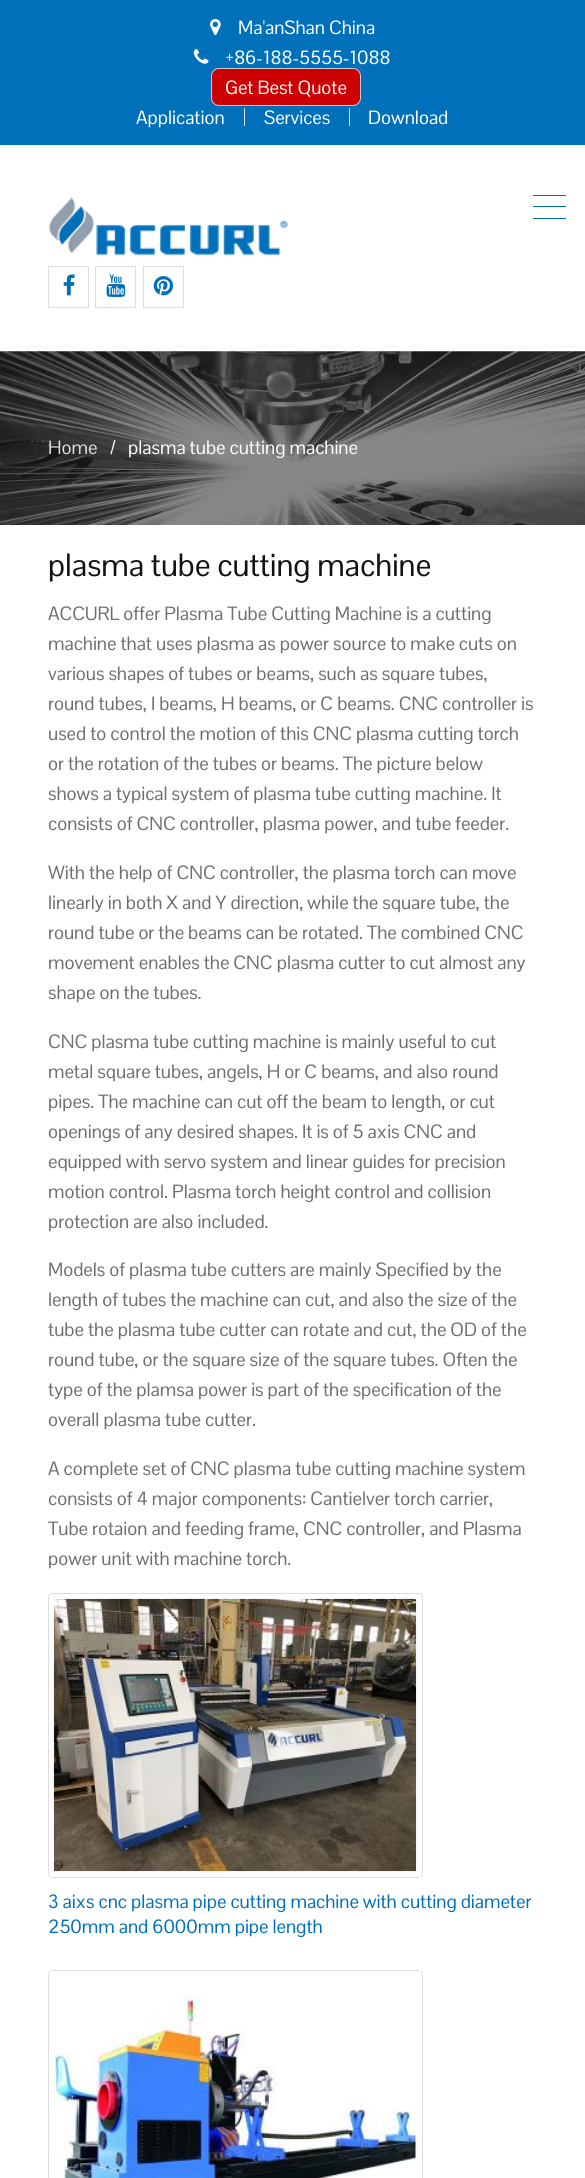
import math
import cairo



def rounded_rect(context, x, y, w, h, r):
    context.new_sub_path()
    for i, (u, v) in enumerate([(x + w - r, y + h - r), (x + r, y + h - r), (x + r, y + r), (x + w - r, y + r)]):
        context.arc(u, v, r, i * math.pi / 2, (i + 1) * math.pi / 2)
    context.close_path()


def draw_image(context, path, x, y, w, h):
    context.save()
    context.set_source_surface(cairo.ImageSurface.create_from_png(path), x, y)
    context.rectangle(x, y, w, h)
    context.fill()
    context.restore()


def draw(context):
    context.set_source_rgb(1, 1, 1)
    context.paint()
    context.set_source_rgb(0, 112 / 255, 187 / 255)
    context.rectangle(0, 0, 585, 145)
    context.fill()
    draw_image(context, "images/1.png", 210, 19, 11, 17)
    draw_image(context, "images/2.png", 193, 49, 16, 15)
    context.set_source_rgb(204 / 255, 0, 0)
    rounded_rect(context, 211.5, 68.5, 149, 37, 7.5)
    context.fill_preserve()
    context.set_source_rgb(204 / 255, 204 / 255, 204 / 255)
    context.set_line_width(1)
    context.stroke()
    context.set_source_rgb(221 / 255, 221 / 255, 221 / 255)
    context.rectangle(244, 108, 1, 18)
    context.fill()
    context.rectangle(349, 108, 1, 18)
    context.fill()
    draw_image(context, "images/3.png", 48, 196, 240, 60)
    context.rectangle(48.5, 266.5, 40, 41)
    context.stroke()
    draw_image(context, "images/4.png", 63, 274, 12, 22)
    context.rectangle(95.5, 266.5, 40, 41)
    context.stroke()
    draw_image(context, "images/5.png", 106, 274, 20, 23)
    context.rectangle(143.5, 266.5, 40, 41)
    context.stroke()
    draw_image(context, "images/6.png", 153, 276, 20, 20)
    context.set_source_rgb(0, 112 / 255, 187 / 255)
    context.rectangle(533, 195, 33, 1)
    context.fill()
    context.rectangle(533, 206, 33, 1)
    context.fill()
    context.rectangle(533, 218, 33, 1)
    context.fill()
    draw_image(context, "images/7.png", 0, 351, 585, 174)
    rounded_rect(context, 48.5, 1593.5, 374, 284, 4.5)
    context.set_source_rgb(221 / 255, 221 / 255, 221 / 255)
    context.stroke()
    draw_image(context, "images/8.png", 53, 1598, 364, 274)
    rounded_rect(context, 48.5, 1970.5, 374, 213, 4.5)
    context.stroke()
    draw_image(context, "images/9.png", 54, 1995, 363, 183)
    context.select_font_face("Pontano Sans")
    context.set_font_size(18.75)
    context.set_source_rgb(1, 1, 1)
    context.move_to(238, 34)
    context.show_text("Ma'anShan China")
    context.move_to(225, 64)
    context.show_text("+86-188-5555-1088")
    context.move_to(225, 94)
    context.show_text("Get Best Quote")
    context.move_to(136, 124)
    context.show_text("Application")
    context.move_to(264, 124)
    context.show_text("Services")
    context.move_to(368, 124)
    context.show_text("Download")
    context.set_source_rgb(221 / 255, 221 / 255, 221 / 255)
    context.move_to(48, 454)
    context.show_text("Home")
    context.set_source_rgb(1, 1, 1)
    context.move_to(110, 454)
    context.show_text("/")
    context.move_to(128, 454)
    context.show_text("plasma tube cutting machine")
    context.set_font_size(31.25)
    context.set_source_rgb(18 / 255, 18 / 255, 18 / 255)
    context.move_to(48, 576)
    context.show_text("plasma tube cutting machine")
    context.set_font_size(18.75)
    context.set_source_rgb(110 / 255, 110 / 255, 110 / 255)
    context.move_to(48, 620)
    context.show_text("ACCURL offer Plasma Tube Cutting Machine is a cutting")
    context.move_to(48, 650)
    context.show_text("machine that uses plasma as power source to make cuts on")
    context.move_to(48, 680)
    context.show_text("various shapes of tubes or beams, such as square tubes,")
    context.move_to(48, 710)
    context.show_text("round tubes, I beams, H beams, or C beams. CNC controller is")
    context.move_to(48, 740)
    context.show_text("used to control the motion of this CNC plasma cutting torch")
    context.move_to(48, 770)
    context.show_text("or the rotation of the tubes or beams. The picture below")
    context.move_to(48, 800)
    context.show_text("shows a typical system of plasma tube cutting machine. It")
    context.move_to(48, 830)
    context.show_text("consists of CNC controller, plasma power, and tube feeder.")
    context.move_to(48, 879)
    context.show_text("With the help of CNC controller, the plasma torch can move")
    context.move_to(48, 909)
    context.show_text("linearly in both X and Y direction, while the square tube, the")
    context.move_to(48, 939)
    context.show_text("round tube or the beams can be rotated. The combined CNC")
    context.move_to(48, 969)
    context.show_text("movement enables the CNC plasma cutter to cut almost any")
    context.move_to(48, 999)
    context.show_text("shape on the tubes.")
    context.move_to(48, 1048)
    context.show_text("CNC plasma tube cutting machine is mainly useful to cut")
    context.move_to(48, 1078)
    context.show_text("metal square tubes, angels, H or C beams, and also round")
    context.move_to(48, 1108)
    context.show_text("pipes. The machine can cut off the beam to length, or cut")
    context.move_to(48, 1138)
    context.show_text("openings of any desired shapes. It is of 5 axis CNC and")
    context.move_to(48, 1168)
    context.show_text("equipped with servo system and linear guides for precision")
    context.move_to(48, 1198)
    context.show_text("motion control. Plasma torch height control and collision")
    context.move_to(48, 1228)
    context.show_text("protection are also included.")
    context.move_to(48, 1276)
    context.show_text("Models of plasma tube cutters are mainly Specified by the")
    context.move_to(48, 1306)
    context.show_text("length of tubes the machine can cut, and also the size of the")
    context.move_to(48, 1336)
    context.show_text("tube the plasma tube cutter can rotate and cut, the OD of the")
    context.move_to(48, 1366)
    context.show_text("round tube, or the square size of the square tubes. Often the")
    context.move_to(48, 1396)
    context.show_text("type of the plamsa power is part of the specification of the")
    context.move_to(48, 1426)
    context.show_text("overall plasma tube cutter.")
    context.move_to(48, 1475)
    context.show_text("A complete set of CNC plasma tube cutting machine system")
    context.move_to(48, 1505)
    context.show_text("consists of 4 major components: Cantielver torch carrier,")
    context.move_to(48, 1535)
    context.show_text("Tube rotaion and feeding frame, CNC controller, and Plasma")
    context.move_to(48, 1565)
    context.show_text("power unit with machine torch.")
    context.set_source_rgb(0, 112 / 255, 187 / 255)
    context.move_to(48, 1908)
    context.show_text("3 aixs cnc plasma pipe cutting machine with cutting diameter")
    context.move_to(48, 1933)
    context.show_text("250mm and 6000mm pipe length")


surface = cairo.ImageSurface(cairo.Format.RGB24, 585, 2178)
context = cairo.Context(surface)
options = cairo.FontOptions()
options.set_hint_metrics(cairo.HintMetrics.OFF)
options.set_hint_style(cairo.HintStyle.NONE)
context.set_font_options(options)
context.set_miter_limit(4)
draw(context)
surface.write_to_png("out.png")
